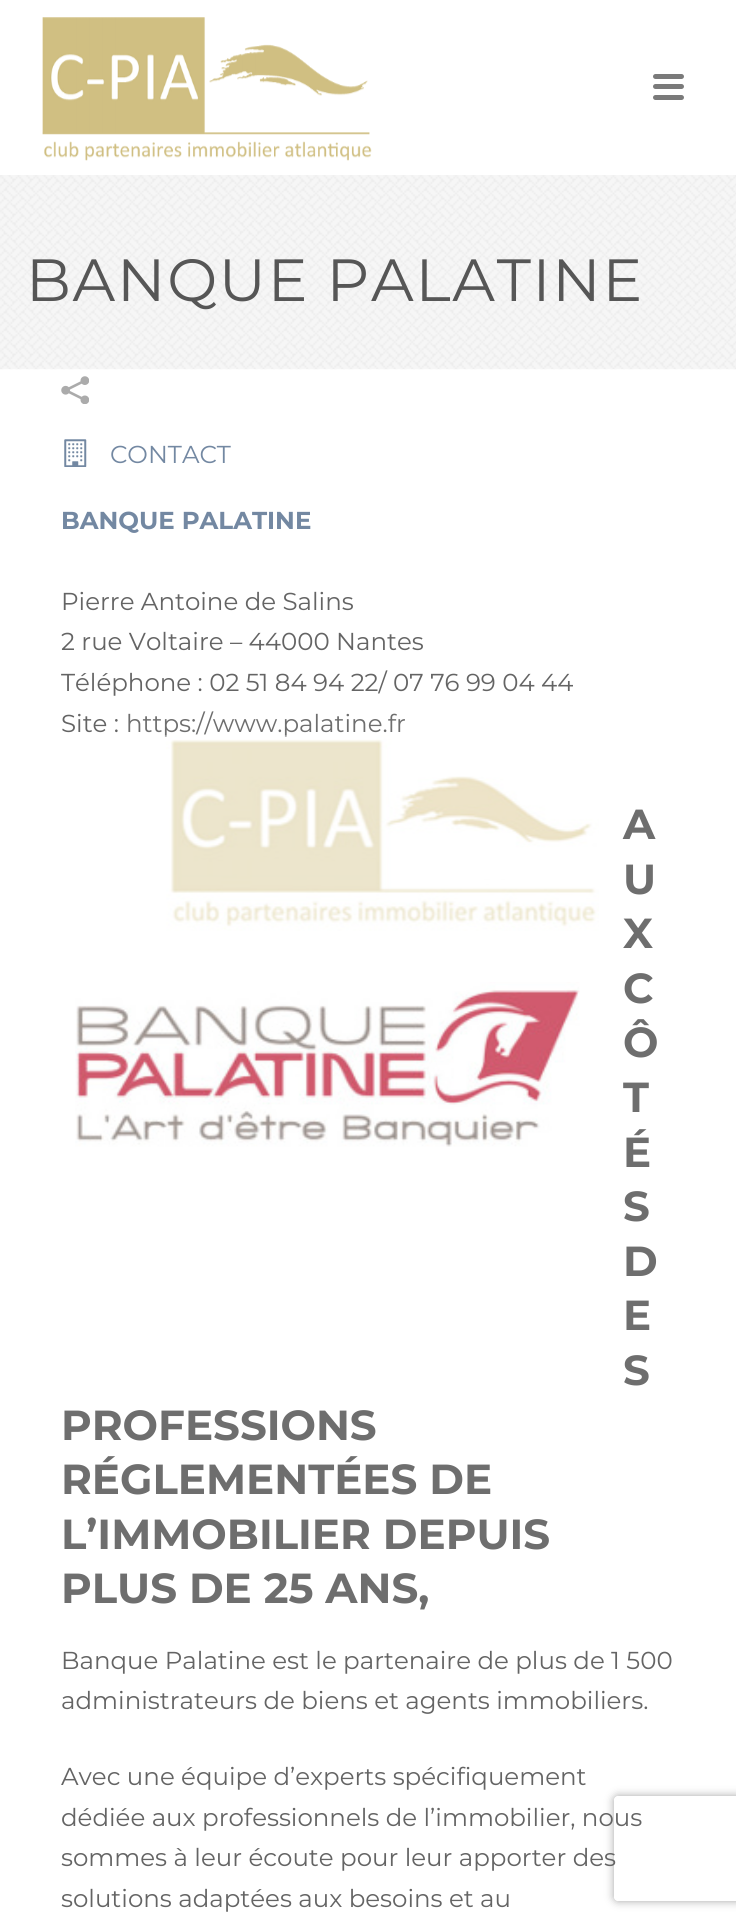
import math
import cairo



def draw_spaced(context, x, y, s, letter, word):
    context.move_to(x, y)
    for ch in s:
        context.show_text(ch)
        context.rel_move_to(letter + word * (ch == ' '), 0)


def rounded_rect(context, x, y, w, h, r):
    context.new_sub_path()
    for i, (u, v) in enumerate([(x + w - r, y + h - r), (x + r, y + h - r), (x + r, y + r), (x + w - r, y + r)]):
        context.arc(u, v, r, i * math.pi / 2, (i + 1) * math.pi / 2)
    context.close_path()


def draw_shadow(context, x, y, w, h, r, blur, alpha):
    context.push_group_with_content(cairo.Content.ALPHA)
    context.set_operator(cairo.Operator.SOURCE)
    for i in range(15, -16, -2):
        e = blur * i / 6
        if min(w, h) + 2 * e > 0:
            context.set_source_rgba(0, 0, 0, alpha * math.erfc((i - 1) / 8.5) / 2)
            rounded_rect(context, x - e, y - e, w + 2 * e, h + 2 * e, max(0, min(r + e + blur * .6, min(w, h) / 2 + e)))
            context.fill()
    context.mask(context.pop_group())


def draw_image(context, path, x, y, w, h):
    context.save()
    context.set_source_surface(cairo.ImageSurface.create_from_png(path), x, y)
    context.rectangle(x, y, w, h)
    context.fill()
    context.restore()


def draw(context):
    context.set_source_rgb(1, 1, 1)
    context.paint()
    draw_image(context, "images/1.png", 0, 175, 736, 195)
    draw_image(context, "images/2.png", 42, 17, 330, 144)
    context.set_source_rgb(122 / 255, 122 / 255, 122 / 255)
    rounded_rect(context, 653, 74, 31, 5, 2.5)
    context.fill()
    rounded_rect(context, 653, 84, 31, 5, 2.5)
    context.fill()
    rounded_rect(context, 653, 95, 31, 5, 2.5)
    context.fill()
    draw_image(context, "images/3.png", 61, 376, 28, 28)
    draw_image(context, "images/4.png", 64, 439, 23, 28)
    draw_image(context, "images/5.png", 75, 982, 505, 165)
    context.save()
    context.set_fill_rule(cairo.FillRule.EVEN_ODD)
    context.new_path()
    context.move_to(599, 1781)
    context.line_to(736, 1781)
    context.line_to(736, 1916)
    context.line_to(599, 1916)
    context.close_path()
    context.move_to(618, 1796)
    context.line_to(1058, 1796)
    context.curve_to(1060, 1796, 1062, 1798, 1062, 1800)
    context.line_to(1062, 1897)
    context.curve_to(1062, 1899, 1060, 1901, 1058, 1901)
    context.line_to(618, 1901)
    context.curve_to(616, 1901, 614, 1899, 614, 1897)
    context.line_to(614, 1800)
    context.curve_to(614, 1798, 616, 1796, 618, 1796)
    context.close_path()
    context.clip()
    context.set_source_rgb(165 / 255, 165 / 255, 165 / 255)
    draw_shadow(context, 614, 1796, 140, 105, 4, 4.5, 1)
    context.restore()
    context.select_font_face("Montserrat")
    context.set_font_size(59.5)
    context.set_source_rgb(86 / 255, 86 / 255, 86 / 255)
    draw_spaced(context, 26, 301, "BANQUE PALATINE", 1.75, 0)
    context.set_font_size(24.5)
    context.set_source_rgb(115 / 255, 136 / 255, 162 / 255)
    context.move_to(110, 463)
    context.show_text("CONTACT")
    context.select_font_face("Montserrat", cairo.FontSlant.NORMAL, cairo.FontWeight.BOLD)
    context.move_to(61, 529)
    context.show_text("BANQUE PALATINE")
    context.select_font_face("Montserrat")
    context.set_source_rgb(100 / 255, 100 / 255, 100 / 255)
    context.move_to(61, 610)
    context.show_text("Pierre Antoine de Salins")
    context.move_to(61, 650)
    context.show_text("2 rue Voltaire – 44000 Nantes")
    context.move_to(61, 691)
    context.show_text("Téléphone : 02 51 84 94 22/ 07 76 99 04 44")
    context.move_to(61, 732)
    context.show_text("Site :")
    context.set_source_rgb(110 / 255, 110 / 255, 110 / 255)
    context.move_to(126, 732)
    context.show_text("https://www.palatine.fr")
    context.select_font_face("Montserrat", cairo.FontSlant.NORMAL, cairo.FontWeight.BOLD)
    context.set_font_size(42)
    context.move_to(623, 839)
    context.show_text("A")
    context.move_to(623, 894)
    context.show_text("U")
    context.move_to(623, 948)
    context.show_text("X")
    context.move_to(623, 1003)
    context.show_text("C")
    context.move_to(623, 1057)
    context.show_text("Ô")
    context.move_to(623, 1112)
    context.show_text("T")
    context.move_to(623, 1167)
    context.show_text("É")
    context.move_to(623, 1221)
    context.show_text("S")
    context.move_to(623, 1276)
    context.show_text("D")
    context.move_to(623, 1330)
    context.show_text("E")
    context.move_to(623, 1385)
    context.show_text("S")
    context.move_to(61, 1440)
    context.show_text("PROFESSIONS")
    context.move_to(61, 1494)
    context.show_text("RÉGLEMENTÉES DE")
    context.move_to(61, 1549)
    context.show_text("L’IMMOBILIER DEPUIS")
    context.move_to(61, 1603)
    context.show_text("PLUS DE 25 ANS,")
    context.select_font_face("Montserrat")
    context.set_font_size(24.5)
    context.set_source_rgb(100 / 255, 100 / 255, 100 / 255)
    context.move_to(61, 1669)
    context.show_text("Banque Palatine est le partenaire de plus de 1 500")
    context.move_to(61, 1709)
    context.show_text("administrateurs de biens et agents immobiliers.")
    context.move_to(61, 1785)
    context.show_text("Avec une équipe d’experts spécifiquement")
    context.move_to(61, 1826)
    context.show_text("dédiée aux professionnels de l’immobilier, nous")
    context.move_to(61, 1866)
    context.show_text("sommes à leur écoute pour leur apporter des")
    context.move_to(61, 1907)
    context.show_text("solutions adaptées aux besoins et au")
    draw_image(context, "images/6.png", 164, 735, 435, 196)


surface = cairo.ImageSurface(cairo.Format.RGB24, 736, 1924)
context = cairo.Context(surface)
options = cairo.FontOptions()
options.set_hint_metrics(cairo.HintMetrics.OFF)
options.set_hint_style(cairo.HintStyle.NONE)
context.set_font_options(options)
context.set_miter_limit(4)
draw(context)
surface.write_to_png("out.png")
